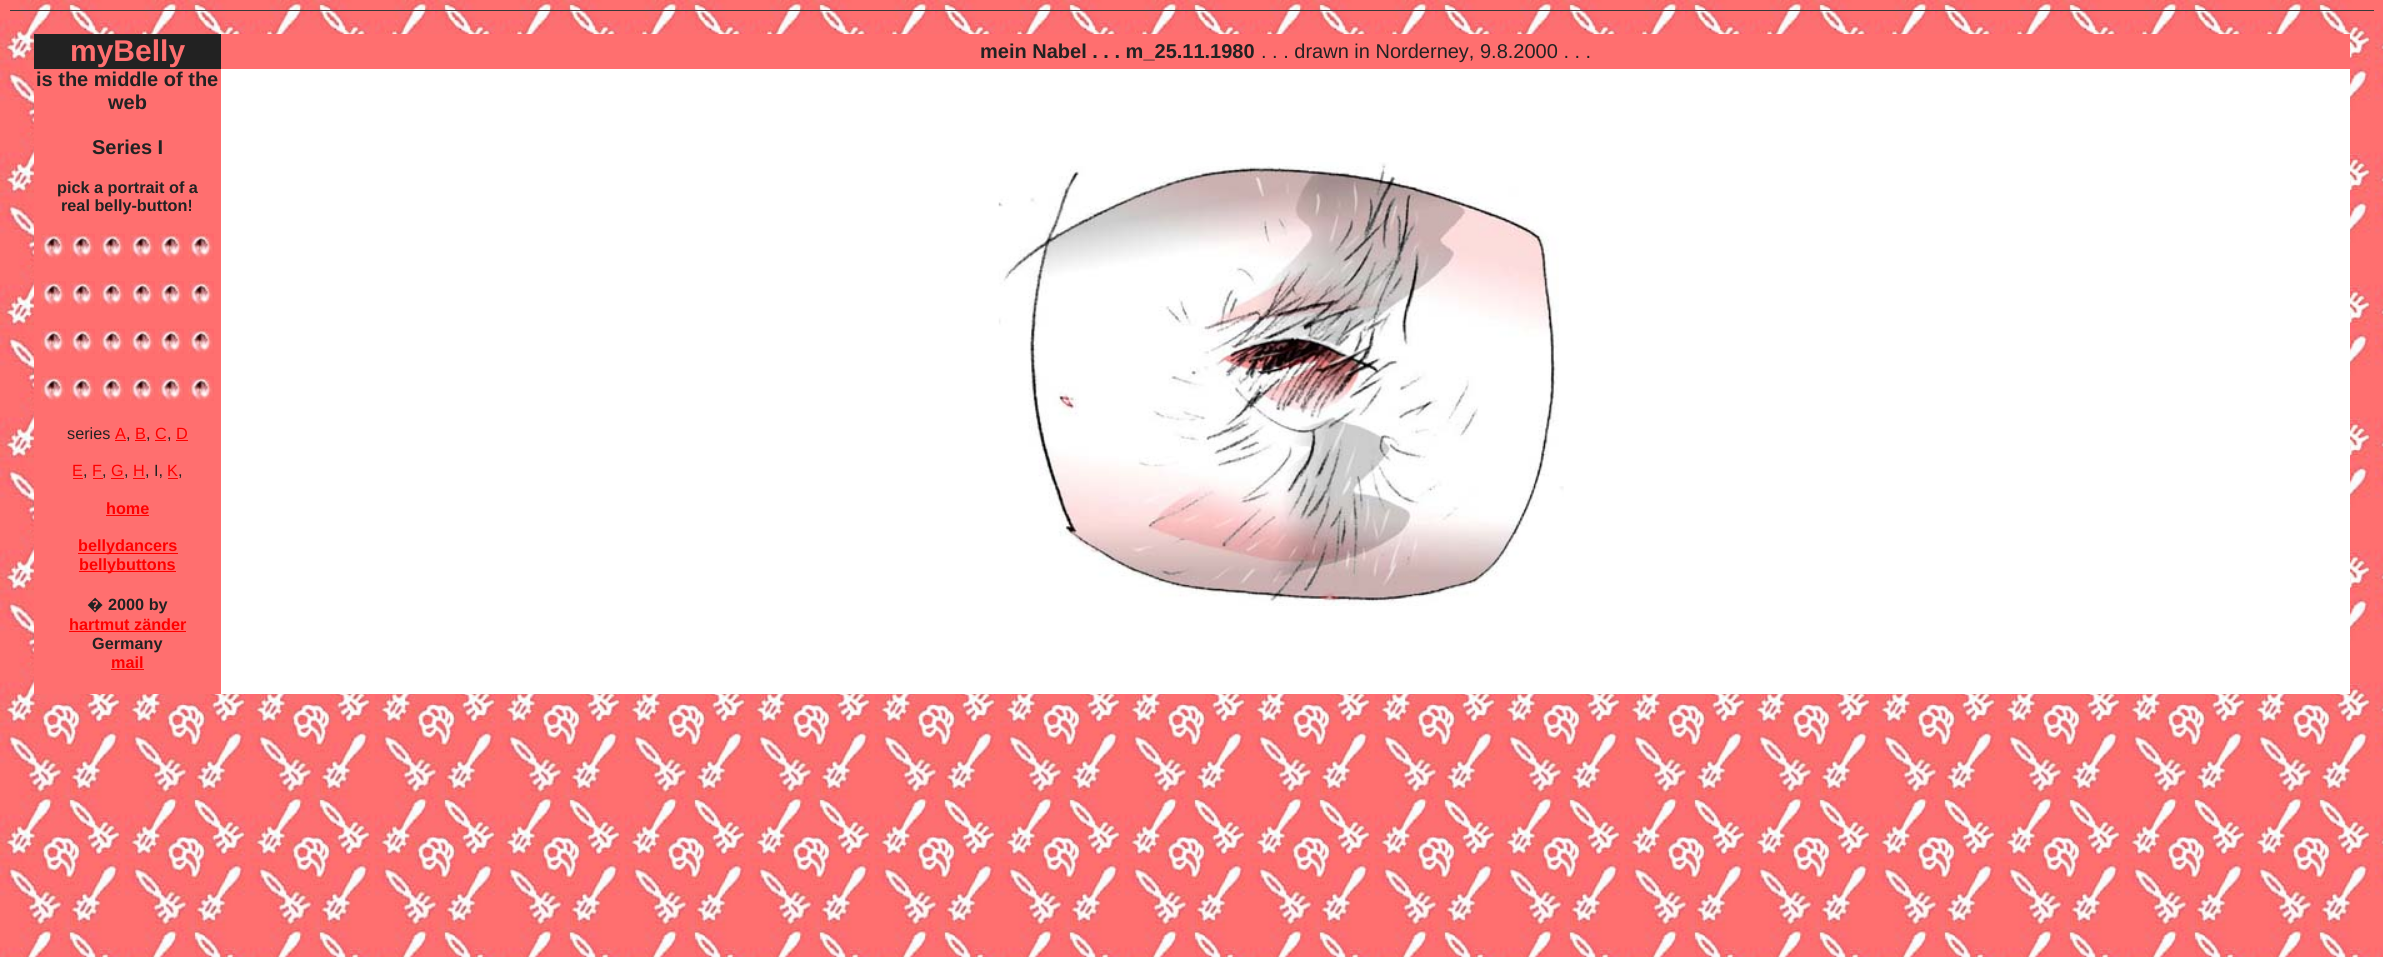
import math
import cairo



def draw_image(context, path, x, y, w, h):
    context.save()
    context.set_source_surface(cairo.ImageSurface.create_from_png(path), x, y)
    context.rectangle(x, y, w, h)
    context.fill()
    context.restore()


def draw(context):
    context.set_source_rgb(1, 1, 1)
    context.paint()
    draw_image(context, "images/1.png", 0, 0, 2383, 957)
    context.set_source_rgb(57 / 255, 57 / 255, 57 / 255)
    context.rectangle(10, 10, 2364, 1)
    context.fill()
    context.set_source_rgb(34 / 255, 34 / 255, 34 / 255)
    context.rectangle(34, 34, 187, 35)
    context.fill()
    context.set_source_rgb(1, 111 / 255, 111 / 255)
    context.rectangle(221, 34, 2129, 35)
    context.fill()
    context.rectangle(34, 69, 187, 625)
    context.fill()
    draw_image(context, "images/2.png", 41, 233, 25, 26)
    draw_image(context, "images/3.png", 70, 233, 25, 26)
    draw_image(context, "images/3.png", 100, 233, 25, 26)
    draw_image(context, "images/3.png", 130, 233, 25, 26)
    draw_image(context, "images/4.png", 158, 233, 26, 26)
    draw_image(context, "images/5.png", 188, 233, 26, 26)
    draw_image(context, "images/6.png", 41, 281, 25, 25)
    draw_image(context, "images/7.png", 70, 281, 25, 25)
    draw_image(context, "images/7.png", 100, 281, 25, 25)
    draw_image(context, "images/7.png", 130, 281, 25, 25)
    draw_image(context, "images/8.png", 158, 281, 26, 25)
    draw_image(context, "images/9.png", 188, 281, 26, 25)
    draw_image(context, "images/2.png", 41, 328, 25, 26)
    draw_image(context, "images/3.png", 70, 328, 25, 26)
    draw_image(context, "images/3.png", 100, 328, 25, 26)
    draw_image(context, "images/3.png", 130, 328, 25, 26)
    draw_image(context, "images/4.png", 158, 328, 26, 26)
    draw_image(context, "images/5.png", 188, 328, 26, 26)
    draw_image(context, "images/10.png", 41, 376, 25, 25)
    draw_image(context, "images/11.png", 70, 376, 25, 25)
    draw_image(context, "images/11.png", 100, 376, 25, 25)
    draw_image(context, "images/11.png", 130, 376, 25, 25)
    draw_image(context, "images/12.png", 158, 376, 26, 25)
    draw_image(context, "images/13.png", 188, 376, 26, 25)
    context.set_source_rgb(1, 0, 0)
    context.rectangle(115, 440, 11, 1)
    context.fill()
    context.rectangle(135, 440, 11, 1)
    context.fill()
    context.rectangle(155, 440, 11, 1)
    context.fill()
    context.rectangle(176, 440, 12, 1)
    context.fill()
    context.rectangle(73, 478, 10, 1)
    context.fill()
    context.rectangle(93, 478, 10, 1)
    context.fill()
    context.rectangle(111, 478, 13, 1)
    context.fill()
    context.rectangle(133, 478, 12, 1)
    context.fill()
    context.rectangle(168, 478, 10, 1)
    context.fill()
    context.rectangle(106, 515, 43, 1)
    context.fill()
    context.rectangle(78, 553, 100, 1)
    context.fill()
    context.rectangle(79, 571, 97, 1)
    context.fill()
    context.rectangle(69, 631, 117, 1)
    context.fill()
    context.rectangle(111, 669, 33, 1)
    context.fill()
    context.set_source_rgb(1, 1, 1)
    context.rectangle(221, 69, 2129, 625)
    context.fill()
    draw_image(context, "images/14.png", 998, 162, 566, 444)
    context.select_font_face("Liberation Sans", cairo.FontSlant.NORMAL, cairo.FontWeight.BOLD)
    context.set_font_size(30)
    context.set_source_rgb(1, 111 / 255, 111 / 255)
    context.move_to(70, 61)
    context.show_text("myBelly")
    context.set_font_size(20)
    context.set_source_rgb(34 / 255, 34 / 255, 34 / 255)
    context.move_to(980, 58)
    context.show_text("mein Nabel . . . m_25.11.1980")
    context.select_font_face("Liberation Sans")
    context.move_to(1261, 58)
    context.show_text(". . . drawn in Norderney, 9.8.2000 . . .")
    context.select_font_face("Liberation Sans", cairo.FontSlant.NORMAL, cairo.FontWeight.BOLD)
    context.move_to(36, 86)
    context.show_text("is the middle of the")
    context.move_to(108, 109)
    context.show_text("web")
    context.move_to(92, 154)
    context.show_text("Series I")
    context.set_font_size(16.25)
    context.move_to(57, 193)
    context.show_text("pick a portrait of a")
    context.move_to(61, 211)
    context.show_text("real belly-button!")
    context.select_font_face("Liberation Sans")
    context.move_to(67, 439)
    context.show_text("series")
    context.set_source_rgb(1, 0, 0)
    context.move_to(115, 439)
    context.show_text("A")
    context.move_to(135, 439)
    context.show_text("B")
    context.move_to(155, 439)
    context.show_text("C")
    context.move_to(176, 439)
    context.show_text("D")
    context.set_source_rgb(34 / 255, 34 / 255, 34 / 255)
    context.move_to(126, 439)
    context.show_text(",")
    context.move_to(146, 439)
    context.show_text(",")
    context.move_to(167, 439)
    context.show_text(",")
    context.set_source_rgb(1, 0, 0)
    context.move_to(72, 476)
    context.show_text("E")
    context.move_to(92, 476)
    context.show_text("F")
    context.move_to(111, 476)
    context.show_text("G")
    context.move_to(133, 476)
    context.show_text("H")
    context.set_source_rgb(34 / 255, 34 / 255, 34 / 255)
    context.move_to(145, 476)
    context.show_text(", I,")
    context.set_source_rgb(1, 0, 0)
    context.move_to(167, 476)
    context.show_text("K")
    context.set_source_rgb(34 / 255, 34 / 255, 34 / 255)
    context.move_to(83, 476)
    context.show_text(",")
    context.move_to(102, 476)
    context.show_text(",")
    context.move_to(124, 476)
    context.show_text(",")
    context.move_to(178, 476)
    context.show_text(",")
    context.select_font_face("Liberation Sans", cairo.FontSlant.NORMAL, cairo.FontWeight.BOLD)
    context.set_source_rgb(1, 0, 0)
    context.move_to(106, 514)
    context.show_text("home")
    context.move_to(78, 551)
    context.show_text("bellydancers")
    context.move_to(79, 570)
    context.show_text("bellybuttons")
    context.select_font_face("Noto Sans", cairo.FontSlant.NORMAL, cairo.FontWeight.BOLD)
    context.set_source_rgb(34 / 255, 34 / 255, 34 / 255)
    context.move_to(87, 610)
    context.show_text("�")
    context.select_font_face("Liberation Sans", cairo.FontSlant.NORMAL, cairo.FontWeight.BOLD)
    context.move_to(108, 610)
    context.show_text("2000 by")
    context.set_source_rgb(1, 0, 0)
    context.move_to(69, 630)
    context.show_text("hartmut zänder")
    context.set_source_rgb(34 / 255, 34 / 255, 34 / 255)
    context.move_to(92, 649)
    context.show_text("Germany")
    context.set_source_rgb(1, 0, 0)
    context.move_to(111, 668)
    context.show_text("mail")


surface = cairo.ImageSurface(cairo.Format.RGB24, 2383, 957)
context = cairo.Context(surface)
options = cairo.FontOptions()
options.set_hint_metrics(cairo.HintMetrics.OFF)
options.set_hint_style(cairo.HintStyle.NONE)
context.set_font_options(options)
context.set_miter_limit(4)
draw(context)
surface.write_to_png("out.png")
